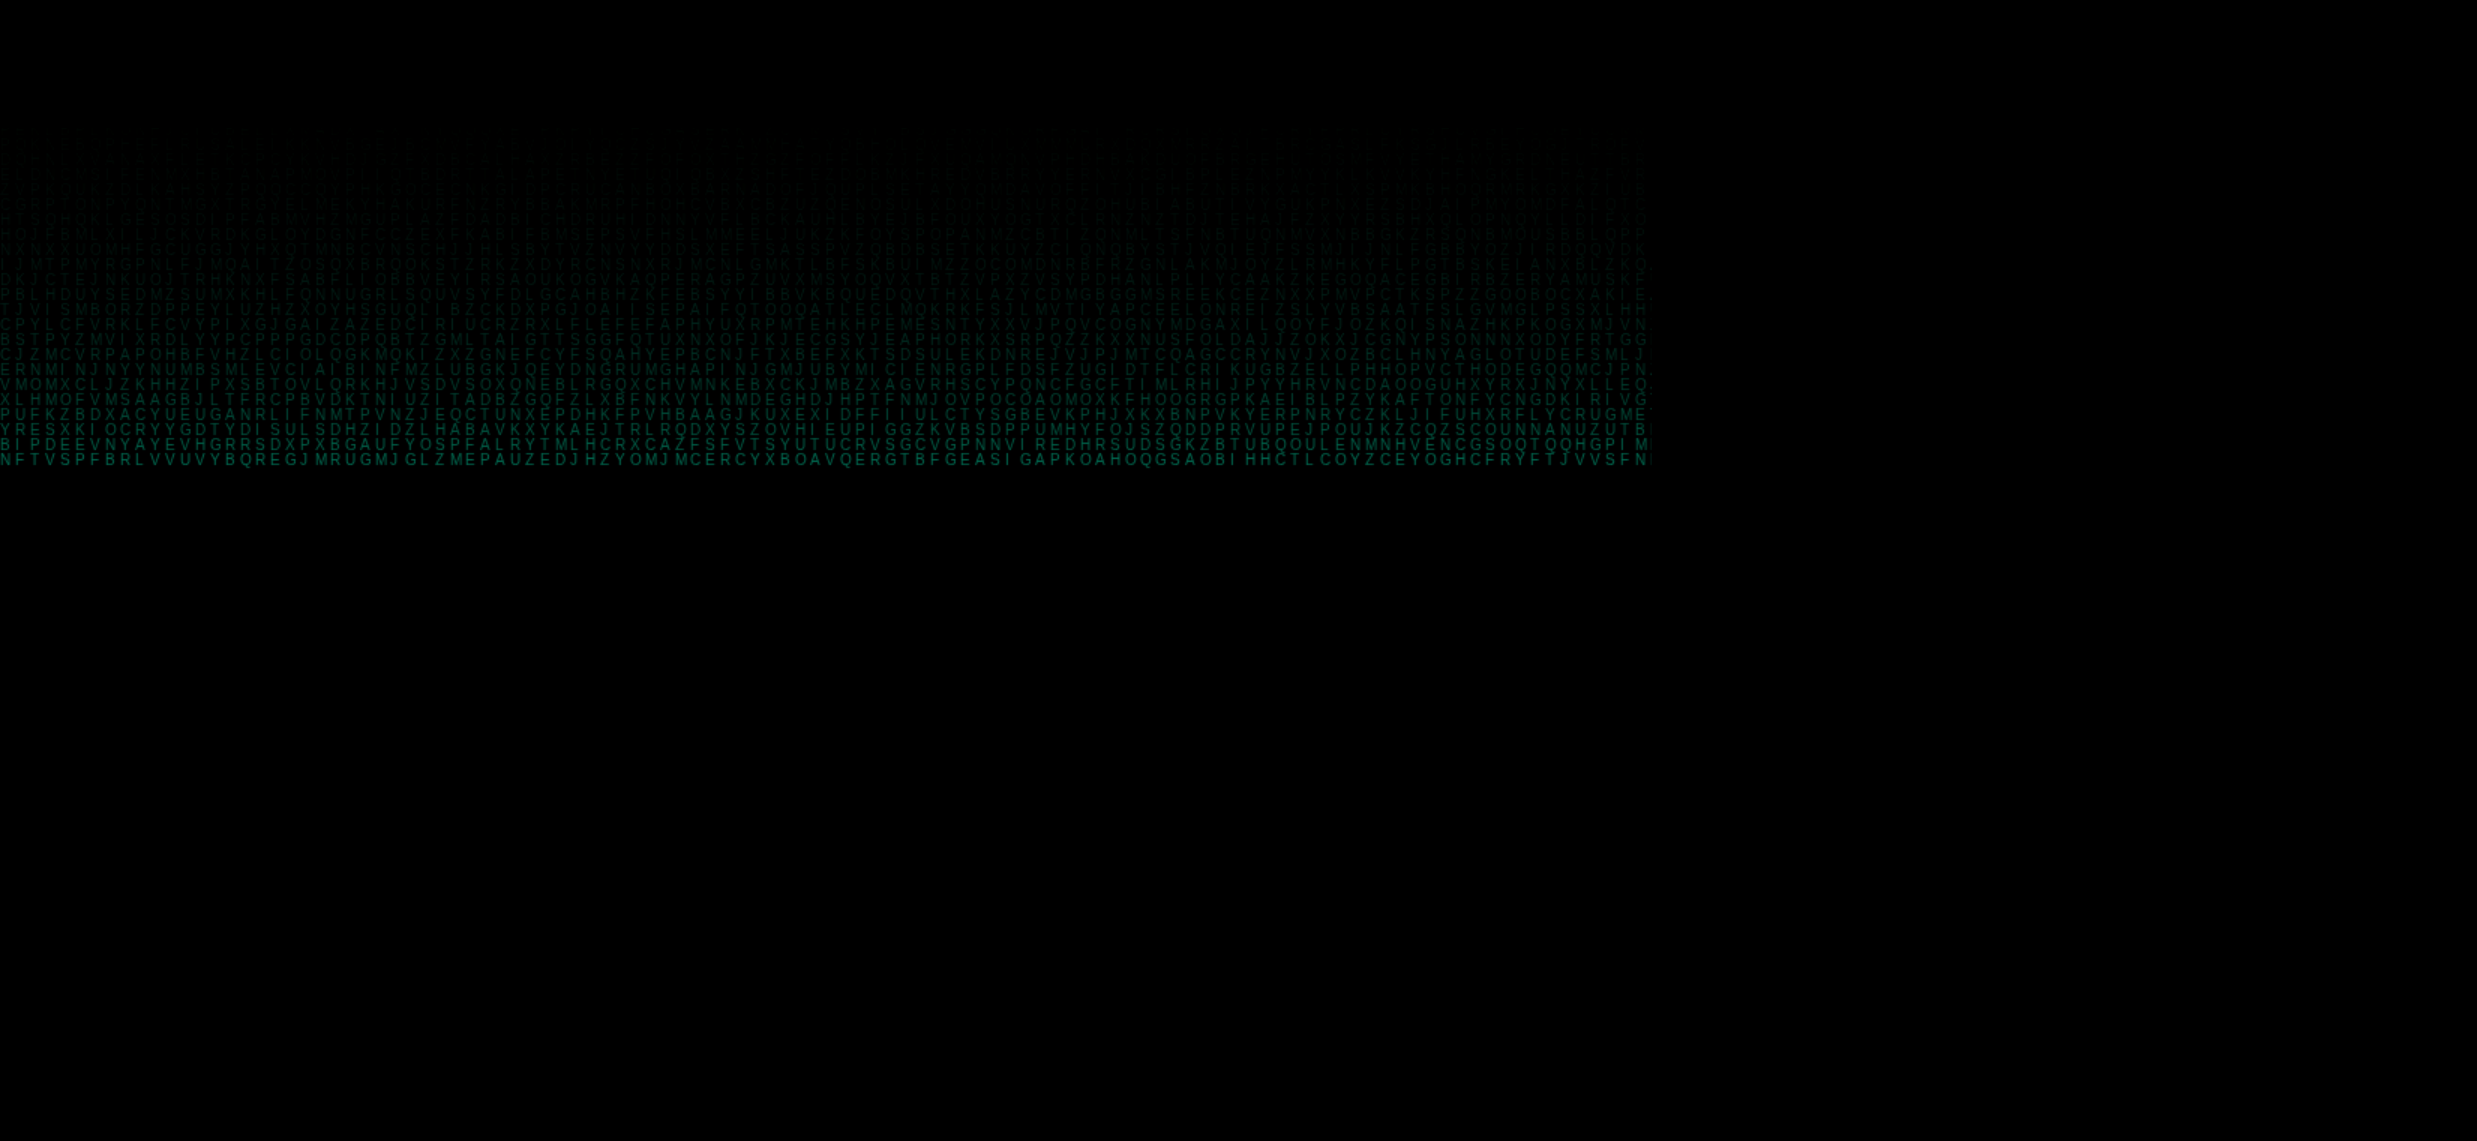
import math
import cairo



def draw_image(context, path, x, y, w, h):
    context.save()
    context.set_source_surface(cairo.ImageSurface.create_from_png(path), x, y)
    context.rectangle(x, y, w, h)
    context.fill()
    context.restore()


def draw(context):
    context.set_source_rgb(0, 0, 0)
    context.paint()
    draw_image(context, "images/1.png", 0, 128, 1652, 341)


surface = cairo.ImageSurface(cairo.Format.RGB24, 2477, 1141)
context = cairo.Context(surface)
options = cairo.FontOptions()
options.set_hint_metrics(cairo.HintMetrics.OFF)
options.set_hint_style(cairo.HintStyle.NONE)
context.set_font_options(options)
context.set_miter_limit(4)
draw(context)
surface.write_to_png("out.png")
